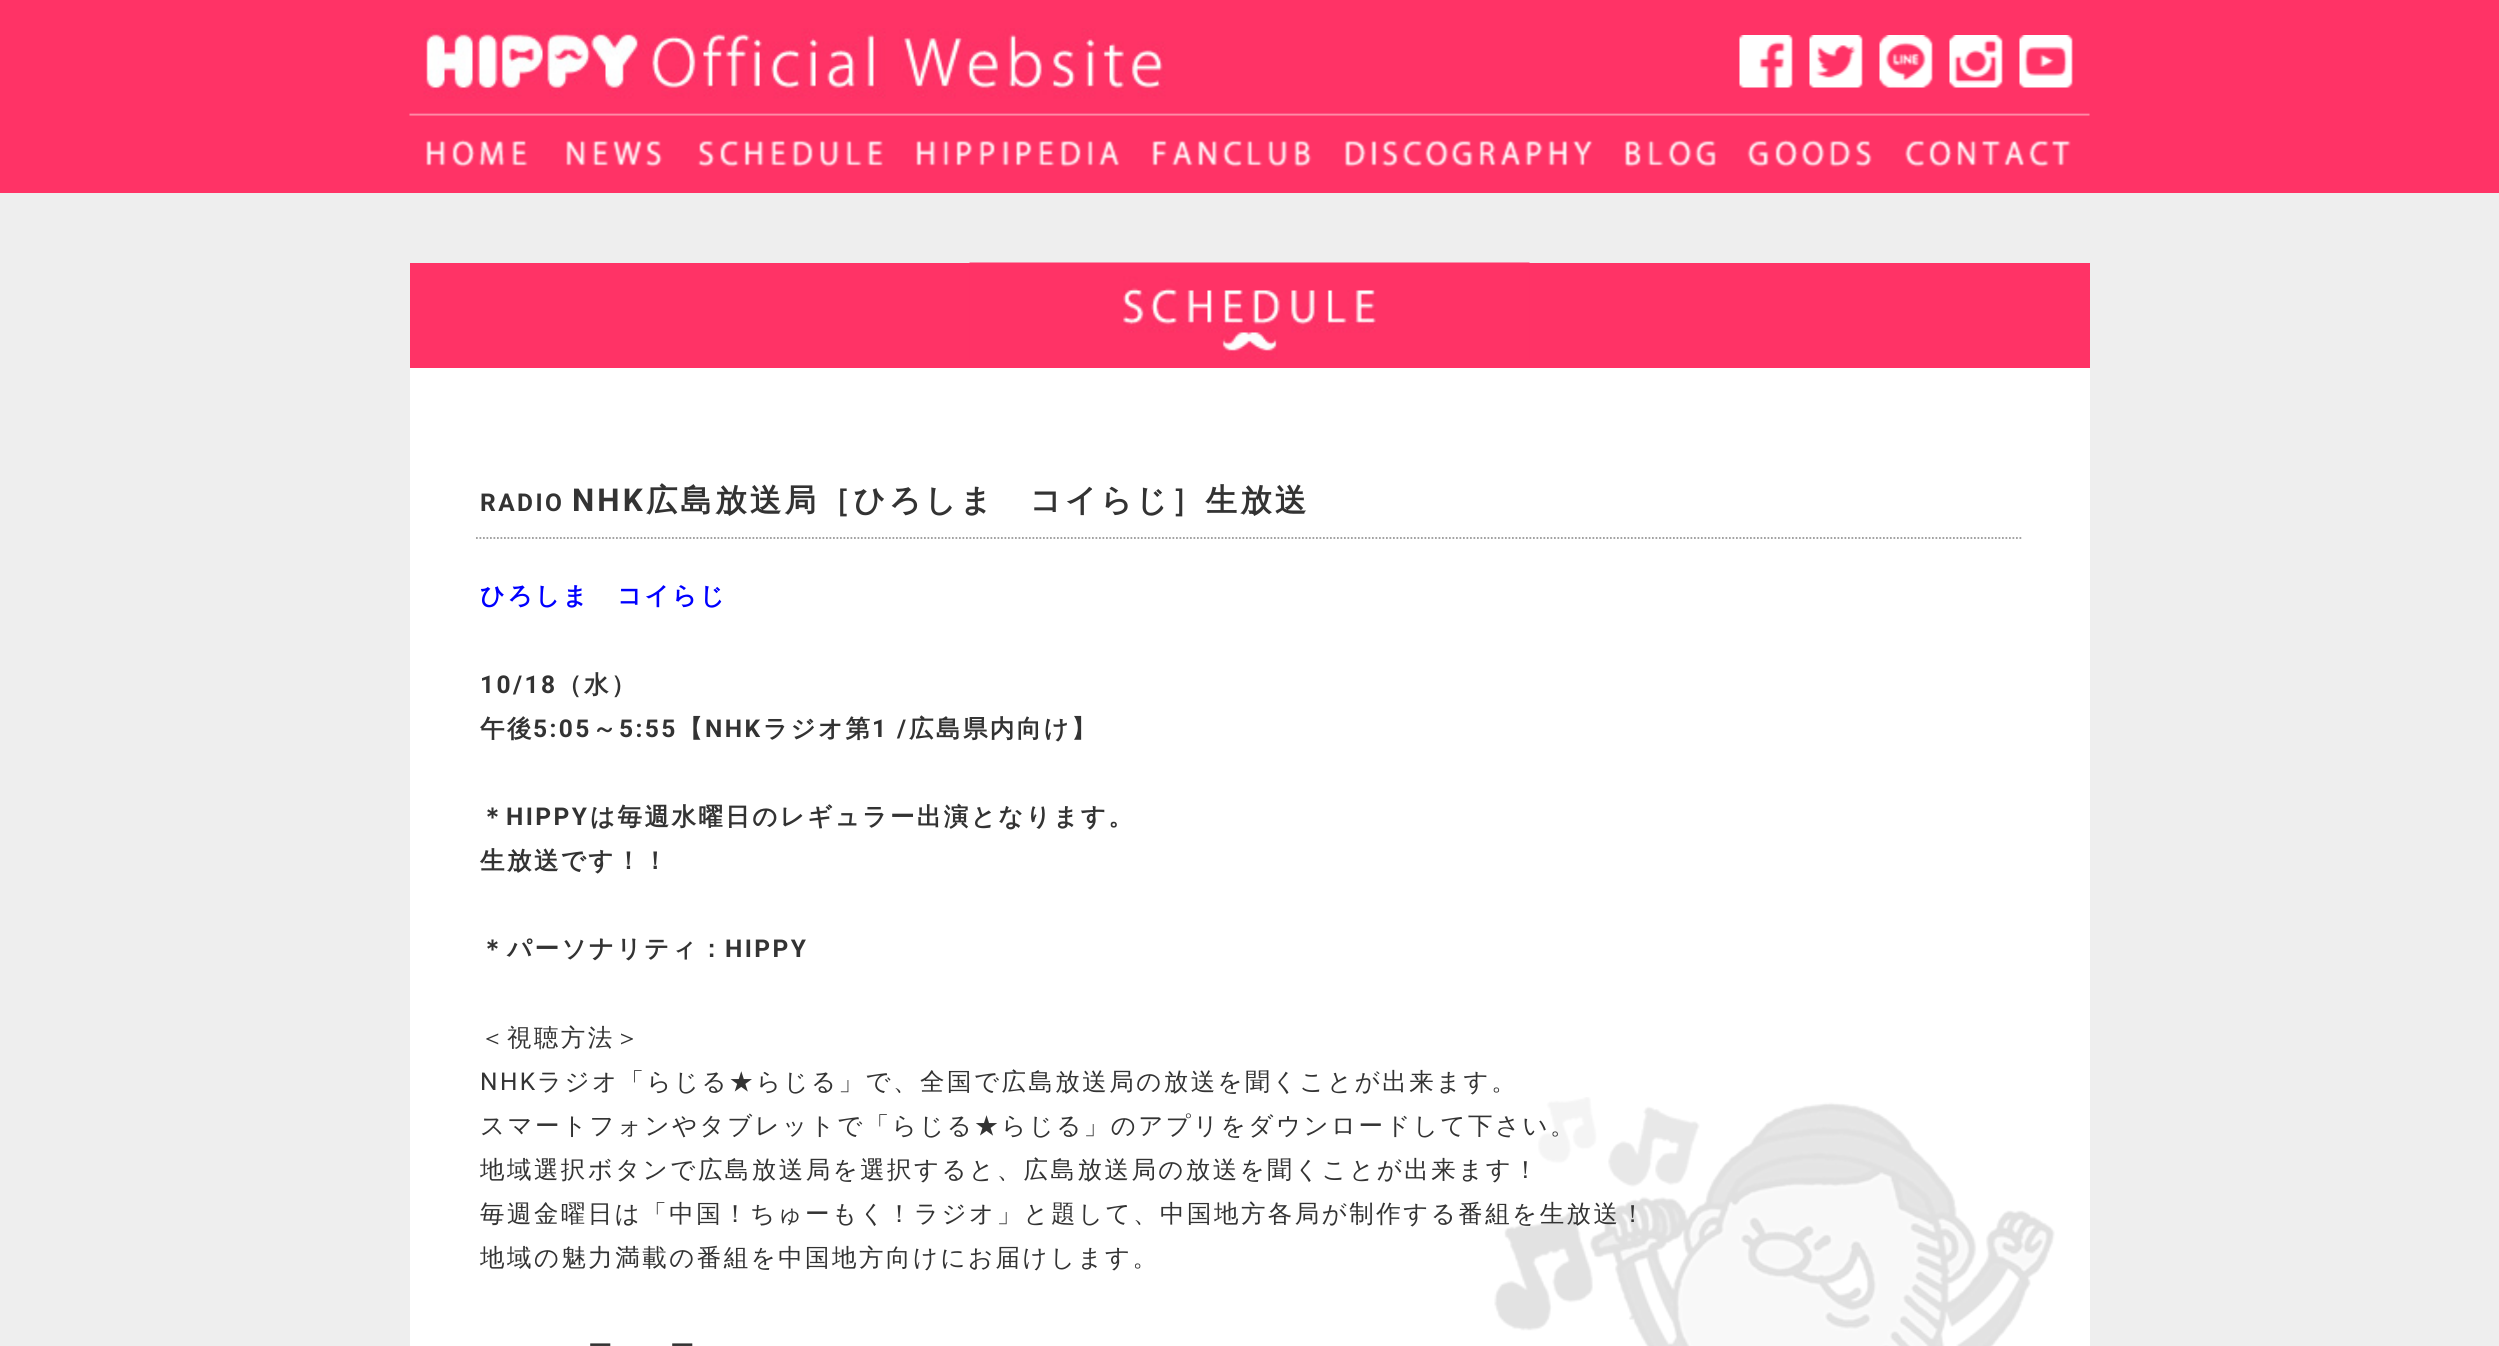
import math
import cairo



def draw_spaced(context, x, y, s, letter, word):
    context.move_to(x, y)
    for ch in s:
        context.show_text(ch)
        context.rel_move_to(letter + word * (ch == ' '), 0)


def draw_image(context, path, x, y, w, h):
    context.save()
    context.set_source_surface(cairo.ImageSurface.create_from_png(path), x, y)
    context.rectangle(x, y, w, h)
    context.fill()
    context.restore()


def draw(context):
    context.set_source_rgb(238 / 255, 238 / 255, 238 / 255)
    context.paint()
    context.set_source_rgb(1, 51 / 255, 102 / 255)
    context.rectangle(0, 0, 2499, 193)
    context.fill()
    draw_image(context, "images/1.png", 409, 28, 1681, 88)
    draw_image(context, "images/2.png", 1739, 35, 54, 53)
    draw_image(context, "images/3.png", 1809, 35, 54, 53)
    draw_image(context, "images/4.png", 1879, 35, 54, 53)
    draw_image(context, "images/5.png", 1949, 35, 54, 53)
    draw_image(context, "images/6.png", 2019, 35, 54, 53)
    draw_image(context, "images/7.png", 426, 139, 102, 28)
    draw_image(context, "images/8.png", 566, 140, 97, 27)
    draw_image(context, "images/9.png", 697, 140, 186, 27)
    draw_image(context, "images/10.png", 916, 140, 204, 27)
    draw_image(context, "images/11.png", 1152, 140, 160, 27)
    draw_image(context, "images/12.png", 1344, 140, 249, 27)
    draw_image(context, "images/13.png", 1624, 140, 92, 27)
    draw_image(context, "images/14.png", 1747, 139, 125, 28)
    draw_image(context, "images/15.png", 1905, 139, 166, 28)
    context.set_source_rgb(1, 1, 1)
    context.rectangle(410, 368, 1680, 978)
    context.fill()
    draw_image(context, "images/16.png", 1494, 1097, 561, 249)
    context.set_source_rgb(1, 51 / 255, 102 / 255)
    context.rectangle(410, 263, 1680, 105)
    context.fill()
    draw_image(context, "images/17.png", 969, 262, 561, 98)
    context.new_path()
    context.move_to(476, 538)
    context.line_to(2023, 538)
    context.set_source_rgb(153 / 255, 153 / 255, 153 / 255)
    context.set_line_width(1.8)
    context.set_dash([1.75, 1.75])
    context.stroke()
    context.select_font_face("Roboto", cairo.FontSlant.NORMAL, cairo.FontWeight.BOLD)
    context.set_font_size(24.5)
    context.set_source_rgb(51 / 255, 51 / 255, 51 / 255)
    draw_spaced(context, 480, 511, "RADIO", 2.45, 0)
    context.set_font_size(31.5)
    draw_spaced(context, 572, 511, "NHK", 3.1, 0)
    context.select_font_face("WenQuanYi Zen Hei", cairo.FontSlant.NORMAL, cairo.FontWeight.BOLD)
    draw_spaced(context, 646, 511, "広島放送局［ひろしま　コイらじ］生放送", 3.1, 0)
    context.set_font_size(24.5)
    context.set_source_rgb(0, 0, 1)
    draw_spaced(context, 480, 604, "ひろしま　コイらじ", 2.45, 0)
    context.select_font_face("Roboto", cairo.FontSlant.NORMAL, cairo.FontWeight.BOLD)
    context.set_source_rgb(51 / 255, 51 / 255, 51 / 255)
    draw_spaced(context, 480, 693, "10/18", 2.45, 0)
    context.select_font_face("WenQuanYi Zen Hei", cairo.FontSlant.NORMAL, cairo.FontWeight.BOLD)
    draw_spaced(context, 557, 693, "（水）", 2.45, 0)
    draw_spaced(context, 480, 737, "午後", 2.45, 0)
    context.select_font_face("Roboto", cairo.FontSlant.NORMAL, cairo.FontWeight.BOLD)
    draw_spaced(context, 533, 737, "5:05", 2.45, 0)
    context.select_font_face("WenQuanYi Zen Hei", cairo.FontSlant.NORMAL, cairo.FontWeight.BOLD)
    draw_spaced(context, 592, 737, "～", 2.45, 0)
    context.select_font_face("Roboto", cairo.FontSlant.NORMAL, cairo.FontWeight.BOLD)
    draw_spaced(context, 619, 737, "5:55", 2.45, 0)
    context.select_font_face("WenQuanYi Zen Hei", cairo.FontSlant.NORMAL, cairo.FontWeight.BOLD)
    draw_spaced(context, 678, 737, "【", 2.45, 0)
    context.select_font_face("Roboto", cairo.FontSlant.NORMAL, cairo.FontWeight.BOLD)
    draw_spaced(context, 705, 737, "NHK", 2.45, 0)
    context.select_font_face("WenQuanYi Zen Hei", cairo.FontSlant.NORMAL, cairo.FontWeight.BOLD)
    draw_spaced(context, 763, 737, "ラジオ第", 2.45, 0)
    context.select_font_face("Roboto", cairo.FontSlant.NORMAL, cairo.FontWeight.BOLD)
    draw_spaced(context, 872, 737, "1 /", 2.45, 0)
    context.select_font_face("WenQuanYi Zen Hei", cairo.FontSlant.NORMAL, cairo.FontWeight.BOLD)
    draw_spaced(context, 909, 737, "広島県内向け】", 2.45, 0)
    draw_spaced(context, 480, 825, "＊", 2.45, 0)
    context.select_font_face("Roboto", cairo.FontSlant.NORMAL, cairo.FontWeight.BOLD)
    draw_spaced(context, 506, 825, "HIPPY", 2.45, 0)
    context.select_font_face("WenQuanYi Zen Hei", cairo.FontSlant.NORMAL, cairo.FontWeight.BOLD)
    draw_spaced(context, 590, 825, "は毎週水曜日のレギュラー出演となります。", 2.45, 0)
    draw_spaced(context, 480, 869, "生放送です！！", 2.45, 0)
    draw_spaced(context, 480, 957, "＊パーソナリティ：", 2.45, 0)
    context.select_font_face("Roboto", cairo.FontSlant.NORMAL, cairo.FontWeight.BOLD)
    draw_spaced(context, 725, 957, "HIPPY", 2.45, 0)
    context.select_font_face("WenQuanYi Zen Hei Medium")
    draw_spaced(context, 480, 1046, "＜視聴方法＞", 2.45, 0)
    context.select_font_face("Roboto")
    draw_spaced(context, 480, 1090, "NHK", 2.45, 0)
    context.select_font_face("WenQuanYi Zen Hei Medium")
    draw_spaced(context, 537, 1090, "ラジオ「らじる★らじる」で、全国で広島放送局の放送を聞くことが出来ます。", 2.45, 0)
    draw_spaced(context, 480, 1134, "スマートフォンやタブレットで「らじる★らじる」のアプリをダウンロードして下さい。", 2.45, 0)
    draw_spaced(context, 480, 1178, "地域選択ボタンで広島放送局を選択すると、広島放送局の放送を聞くことが出来ます！", 2.45, 0)
    draw_spaced(context, 480, 1222, "毎週金曜日は「中国！ちゅーもく！ラジオ」と題して、中国地方各局が制作する番組を生放送！", 2.45, 0)
    draw_spaced(context, 480, 1266, "地域の魅力満載の番組を中国地方向けにお届けします。", 2.45, 0)
    draw_spaced(context, 588, 1354, "ー", 2.45, 0)
    draw_spaced(context, 670, 1354, "ー", 2.45, 0)


surface = cairo.ImageSurface(cairo.Format.RGB24, 2499, 1346)
context = cairo.Context(surface)
options = cairo.FontOptions()
options.set_hint_metrics(cairo.HintMetrics.OFF)
options.set_hint_style(cairo.HintStyle.NONE)
context.set_font_options(options)
context.set_miter_limit(4)
draw(context)
surface.write_to_png("out.png")
